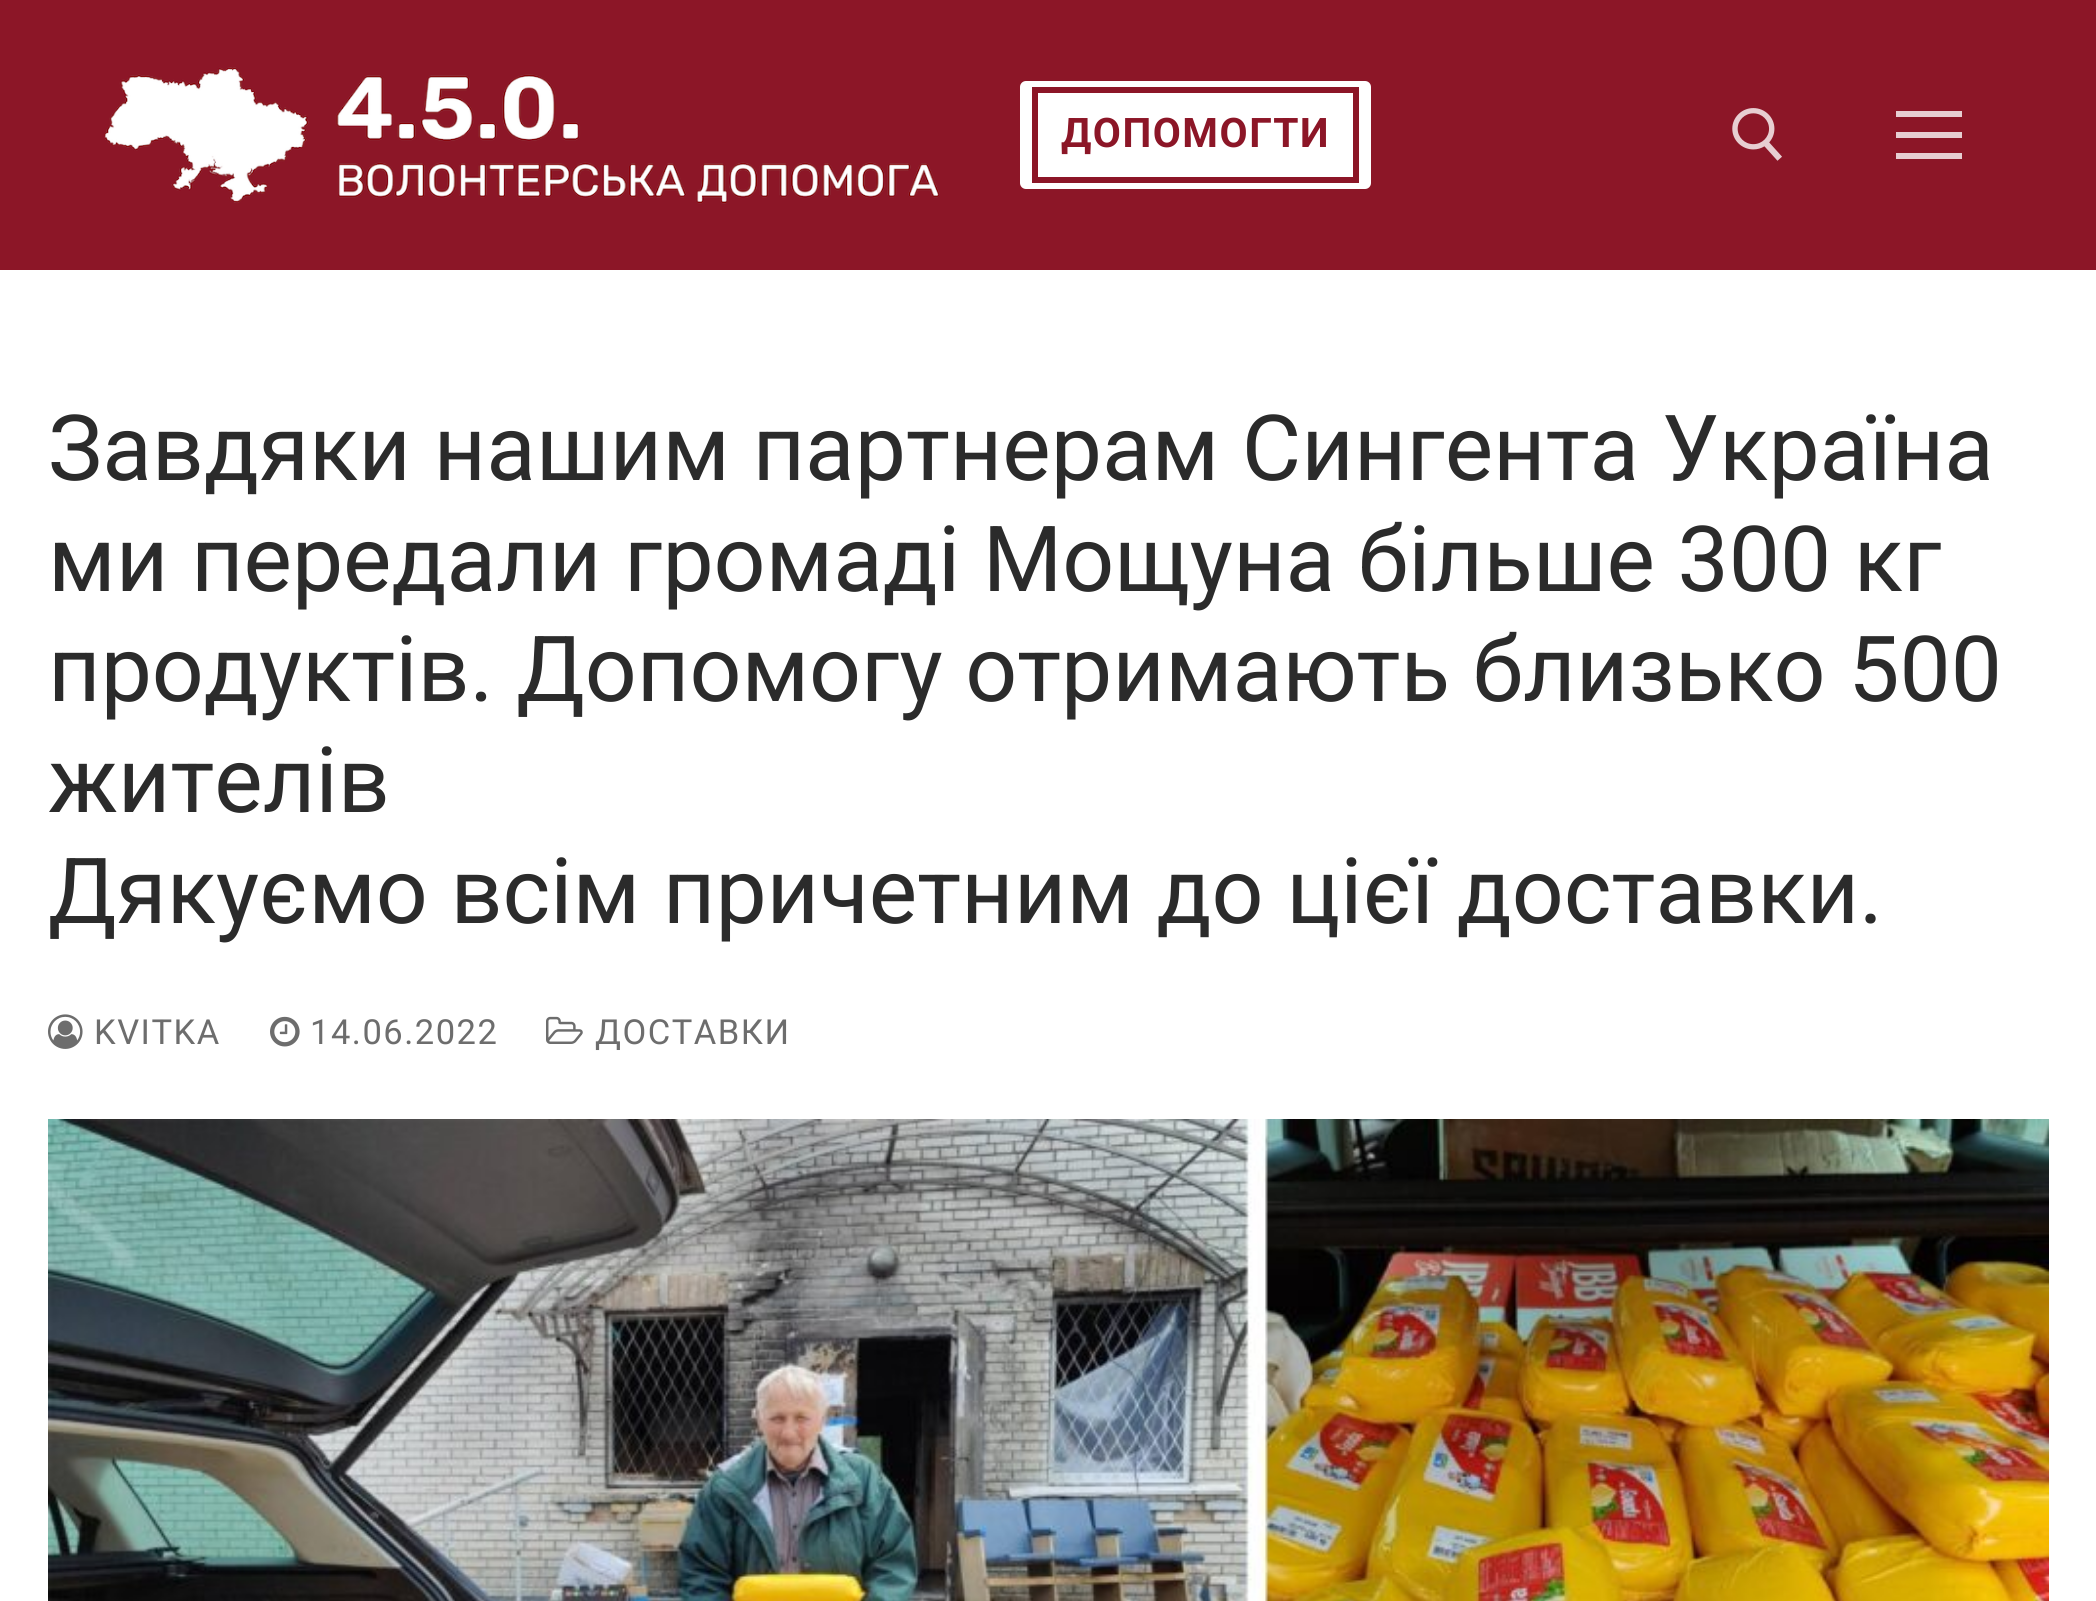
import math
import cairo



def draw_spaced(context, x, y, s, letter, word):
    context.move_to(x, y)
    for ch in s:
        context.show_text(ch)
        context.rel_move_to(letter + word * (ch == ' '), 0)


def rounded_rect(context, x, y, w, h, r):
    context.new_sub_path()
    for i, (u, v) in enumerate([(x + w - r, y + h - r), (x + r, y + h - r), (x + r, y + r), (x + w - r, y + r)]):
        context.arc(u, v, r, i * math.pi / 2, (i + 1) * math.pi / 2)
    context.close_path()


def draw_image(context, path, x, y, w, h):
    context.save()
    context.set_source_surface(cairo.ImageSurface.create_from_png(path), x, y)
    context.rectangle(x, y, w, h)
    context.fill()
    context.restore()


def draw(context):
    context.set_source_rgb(1, 1, 1)
    context.paint()
    context.set_source_rgb(140 / 255, 22 / 255, 39 / 255)
    context.rectangle(0, 0, 2096, 270)
    context.fill()
    draw_image(context, "images/1.png", 104, 67, 836, 137)
    context.set_source_rgb(1, 1, 1)
    rounded_rect(context, 1020, 81, 351, 108, 6)
    context.fill()
    context.rectangle(1035, 90, 321, 90)
    context.set_source_rgb(140 / 255, 22 / 255, 39 / 255)
    context.set_line_width(6)
    context.stroke()
    draw_image(context, "images/2.png", 1732, 108, 50, 53)
    context.set_source_rgb(231 / 255, 206 / 255, 210 / 255)
    context.rectangle(1896, 132, 66, 6)
    context.fill()
    context.rectangle(1896, 111, 66, 6)
    context.fill()
    context.rectangle(1896, 153, 66, 6)
    context.fill()
    draw_image(context, "images/3.png", 48, 1014, 35, 35)
    draw_image(context, "images/4.png", 270, 1016, 30, 31)
    draw_image(context, "images/5.png", 546, 1016, 37, 28)
    draw_image(context, "images/6.png", 48, 1119, 2001, 482)
    context.select_font_face("Roboto", cairo.FontSlant.NORMAL, cairo.FontWeight.BOLD)
    context.set_font_size(40.75)
    context.set_source_rgb(140 / 255, 22 / 255, 39 / 255)
    draw_spaced(context, 1061, 147, "ДОПОМОГТИ", 1.5, 0)
    context.select_font_face("Roboto")
    context.set_font_size(91.2)
    context.set_source_rgb(43 / 255, 43 / 255, 43 / 255)
    context.move_to(48, 480)
    context.show_text("Завдяки нашим партнерам Сингента Україна")
    context.move_to(48, 591)
    context.show_text("ми передали громаді Мощуна більше 300 кг")
    context.move_to(48, 701)
    context.show_text("продуктів. Допомогу отримають близько 500")
    context.move_to(48, 812)
    context.show_text("жителів")
    context.move_to(48, 923)
    context.show_text("Дякуємо всім причетним до цієї доставки.")
    context.set_font_size(34.5)
    context.set_source_rgb(109 / 255, 109 / 255, 109 / 255)
    draw_spaced(context, 94, 1044, "KVITKA", 1.5, 0)
    draw_spaced(context, 310, 1044, "14.06.2022", 1.5, 0)
    draw_spaced(context, 595, 1044, "ДОСТАВКИ", 1.5, 0)


surface = cairo.ImageSurface(cairo.Format.RGB24, 2096, 1601)
context = cairo.Context(surface)
options = cairo.FontOptions()
options.set_hint_metrics(cairo.HintMetrics.OFF)
options.set_hint_style(cairo.HintStyle.NONE)
context.set_font_options(options)
context.set_miter_limit(4)
draw(context)
surface.write_to_png("out.png")
